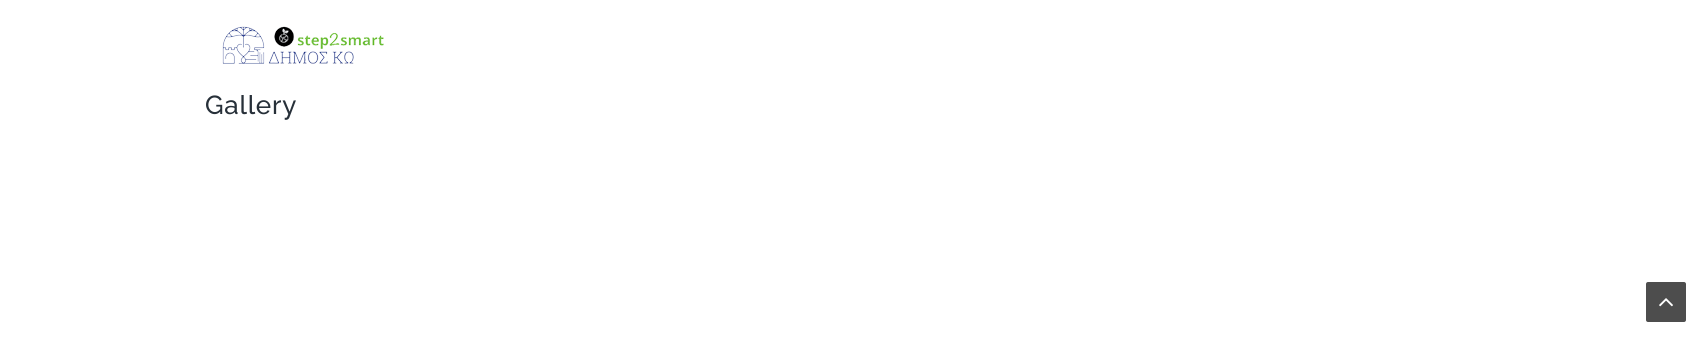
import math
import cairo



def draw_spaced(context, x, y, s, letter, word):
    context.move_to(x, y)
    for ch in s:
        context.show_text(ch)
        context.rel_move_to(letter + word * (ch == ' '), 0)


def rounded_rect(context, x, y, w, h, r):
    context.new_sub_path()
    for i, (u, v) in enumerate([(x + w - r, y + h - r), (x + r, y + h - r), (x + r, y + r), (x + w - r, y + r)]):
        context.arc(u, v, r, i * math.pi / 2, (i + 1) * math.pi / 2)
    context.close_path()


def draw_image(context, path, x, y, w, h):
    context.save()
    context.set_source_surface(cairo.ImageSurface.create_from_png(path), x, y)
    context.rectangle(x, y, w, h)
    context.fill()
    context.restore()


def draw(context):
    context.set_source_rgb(1, 1, 1)
    context.paint()
    draw_image(context, "images/1.png", 222, 26, 162, 38)
    context.set_source_rgb(77 / 255, 77 / 255, 77 / 255)
    rounded_rect(context, 1646, 282, 40, 40, 2)
    context.fill()
    draw_image(context, "images/2.png", 1659, 298, 14, 9)
    context.select_font_face("Raleway Medium")
    context.set_font_size(26)
    context.set_source_rgb(39 / 255, 48 / 255, 57 / 255)
    draw_spaced(context, 205, 114, "Gallery", 0.75, 0)


surface = cairo.ImageSurface(cairo.Format.RGB24, 1706, 342)
context = cairo.Context(surface)
options = cairo.FontOptions()
options.set_hint_metrics(cairo.HintMetrics.OFF)
options.set_hint_style(cairo.HintStyle.NONE)
context.set_font_options(options)
context.set_miter_limit(4)
draw(context)
surface.write_to_png("out.png")
